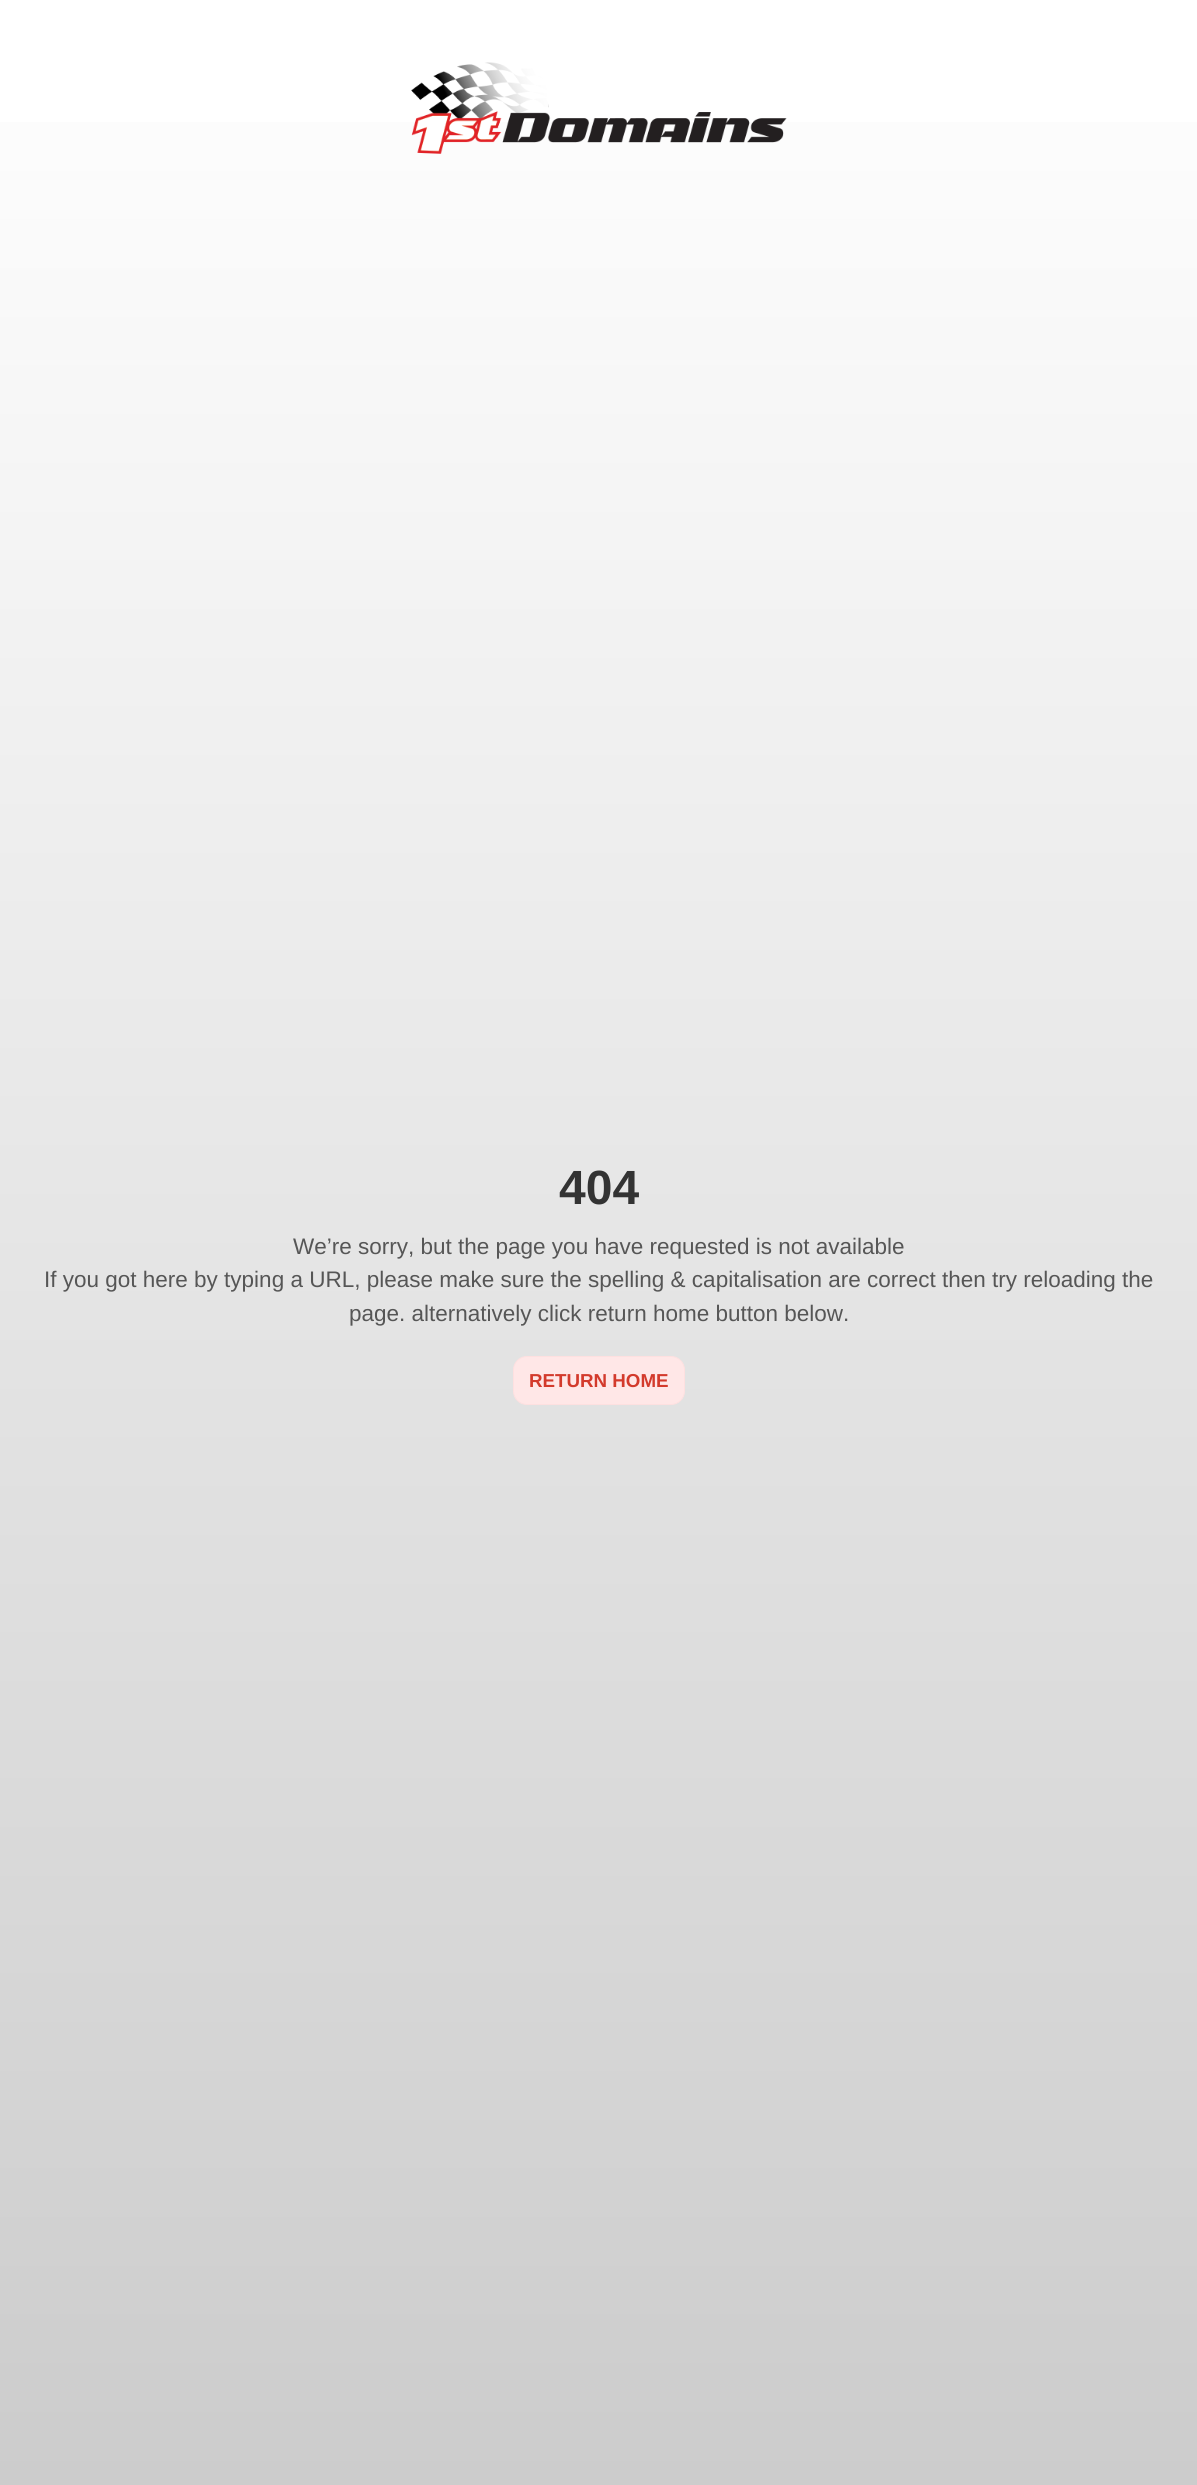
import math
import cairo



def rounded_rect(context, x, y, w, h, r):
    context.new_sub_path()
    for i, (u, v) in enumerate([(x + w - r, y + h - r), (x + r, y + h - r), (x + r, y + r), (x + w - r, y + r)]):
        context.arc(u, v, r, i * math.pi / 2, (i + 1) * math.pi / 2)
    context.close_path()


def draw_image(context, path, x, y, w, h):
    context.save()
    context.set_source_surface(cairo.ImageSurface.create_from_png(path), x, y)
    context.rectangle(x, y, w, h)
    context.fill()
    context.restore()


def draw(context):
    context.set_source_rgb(1, 1, 1)
    context.paint()
    gradient = cairo.LinearGradient(599, 2485, 599, 0)
    gradient.add_color_stop_rgba(0, 204 / 255, 204 / 255, 204 / 255, 1)
    gradient.add_color_stop_rgba(1, 1, 1, 1, 1)
    context.set_source(gradient)
    context.rectangle(0, 122, 1197, 2363)
    context.fill()
    draw_image(context, "images/1.png", 411, 62, 376, 92)
    context.set_source_rgb(1, 231 / 255, 231 / 255)
    rounded_rect(context, 513.5, 1356.5, 171, 48, 13.5)
    context.fill_preserve()
    context.set_source_rgb(254 / 255, 224 / 255, 224 / 255)
    context.set_line_width(1)
    context.stroke()
    context.select_font_face("Liberation Sans", cairo.FontSlant.NORMAL, cairo.FontWeight.BOLD)
    context.set_font_size(48)
    context.set_source_rgb(51 / 255, 51 / 255, 51 / 255)
    context.move_to(559, 1204)
    context.show_text("404")
    context.select_font_face("Liberation Sans")
    context.set_font_size(22.5)
    context.set_source_rgb(86 / 255, 86 / 255, 86 / 255)
    context.move_to(293, 1254)
    context.show_text("We’re sorry, but the page you have requested is not available")
    context.move_to(44, 1287)
    context.show_text("If you got here by typing a URL, please make sure the spelling & capitalisation are correct then try reloading the")
    context.move_to(349, 1321)
    context.show_text("page. alternatively click return home button below.")
    context.select_font_face("Liberation Sans", cairo.FontSlant.NORMAL, cairo.FontWeight.BOLD)
    context.set_font_size(18.75)
    context.set_source_rgb(211 / 255, 58 / 255, 44 / 255)
    context.move_to(529, 1387)
    context.show_text("RETURN HOME")


surface = cairo.ImageSurface(cairo.Format.RGB24, 1197, 2485)
context = cairo.Context(surface)
options = cairo.FontOptions()
options.set_hint_metrics(cairo.HintMetrics.OFF)
options.set_hint_style(cairo.HintStyle.NONE)
context.set_font_options(options)
context.set_miter_limit(4)
draw(context)
surface.write_to_png("out.png")
